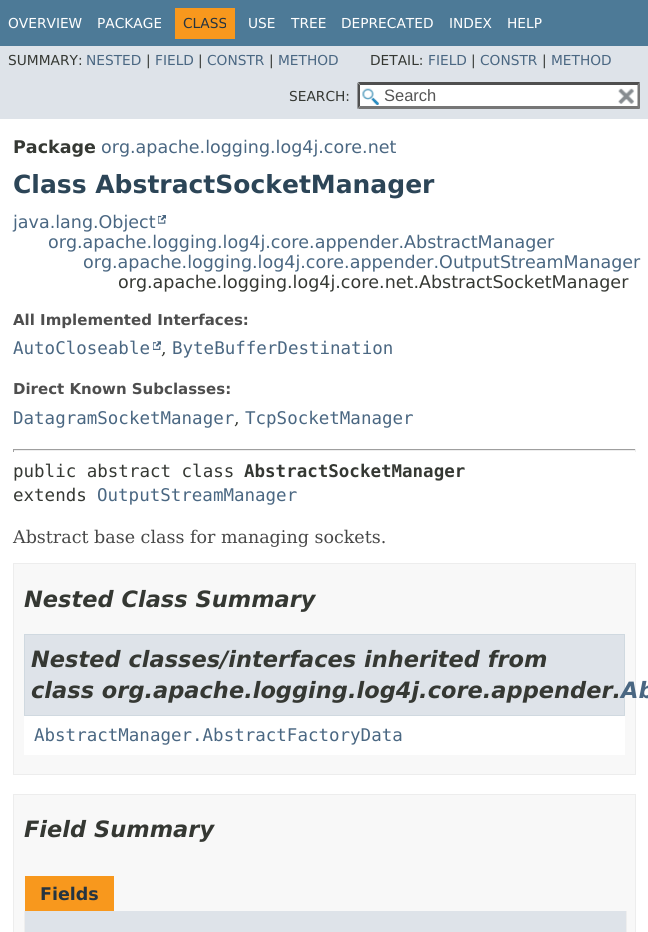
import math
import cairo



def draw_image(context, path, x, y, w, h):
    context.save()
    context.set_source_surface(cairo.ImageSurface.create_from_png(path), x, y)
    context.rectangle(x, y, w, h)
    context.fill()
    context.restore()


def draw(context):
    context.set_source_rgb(1, 1, 1)
    context.paint()
    context.set_source_rgb(77 / 255, 122 / 255, 151 / 255)
    context.rectangle(0, 0, 648, 46)
    context.fill()
    context.set_source_rgb(248 / 255, 152 / 255, 29 / 255)
    context.rectangle(175, 8, 60, 31)
    context.fill()
    context.set_source_rgb(222 / 255, 227 / 255, 233 / 255)
    context.rectangle(0, 46, 648, 73)
    context.fill()
    context.set_source_rgb(1, 1, 1)
    context.rectangle(358, 83, 282, 26)
    context.fill()
    draw_image(context, "images/1.png", 362, 88, 17, 17)
    context.set_source_rgb(79 / 255, 79 / 255, 79 / 255)
    context.new_path()
    context.move_to(358, 82)
    context.line_to(640, 82)
    context.line_to(638, 85)
    context.line_to(360, 85)
    context.close_path()
    context.fill()
    context.set_source_rgb(118 / 255, 118 / 255, 118 / 255)
    context.new_path()
    context.move_to(640, 82.5)
    context.line_to(640, 109)
    context.line_to(637.5, 106)
    context.line_to(637.5, 85)
    context.close_path()
    context.fill()
    context.new_path()
    context.move_to(640, 109)
    context.line_to(358, 109)
    context.line_to(360, 106)
    context.line_to(638, 106)
    context.close_path()
    context.fill()
    context.set_source_rgb(79 / 255, 79 / 255, 79 / 255)
    context.new_path()
    context.move_to(357.5, 109)
    context.line_to(357.5, 82.5)
    context.line_to(360, 85)
    context.line_to(360, 106)
    context.close_path()
    context.fill()
    draw_image(context, "images/2.png", 618, 88, 17, 16)
    draw_image(context, "images/3.png", 158, 215, 8, 9)
    draw_image(context, "images/4.png", 153, 341, 8, 9)
    context.set_source_rgb(159 / 255, 159 / 255, 159 / 255)
    context.rectangle(13, 449, 623, 1)
    context.fill()
    context.set_source_rgb(238 / 255, 238 / 255, 238 / 255)
    context.rectangle(635, 449, 1, 3)
    context.fill()
    context.rectangle(13, 450, 623, 1)
    context.fill()
    context.set_source_rgb(159 / 255, 159 / 255, 159 / 255)
    context.rectangle(13, 449, 1, 3)
    context.fill()
    context.set_source_rgb(248 / 255, 248 / 255, 248 / 255)
    context.rectangle(13.5, 563.5, 622, 211)
    context.fill_preserve()
    context.set_source_rgb(237 / 255, 237 / 255, 237 / 255)
    context.set_line_width(1)
    context.stroke()
    context.set_source_rgb(1, 1, 1)
    context.rectangle(24, 716, 601, 39)
    context.fill()
    context.set_source_rgb(222 / 255, 227 / 255, 233 / 255)
    context.rectangle(24.5, 634.5, 600, 81)
    context.fill_preserve()
    context.set_source_rgb(208 / 255, 217 / 255, 224 / 255)
    context.stroke()
    context.set_source_rgb(248 / 255, 248 / 255, 248 / 255)
    context.rectangle(13.5, 794.5, 622, 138)
    context.fill_preserve()
    context.set_source_rgb(237 / 255, 237 / 255, 237 / 255)
    context.stroke()
    context.set_source_rgb(248 / 255, 152 / 255, 29 / 255)
    context.rectangle(25, 876, 89, 35)
    context.fill()
    context.set_source_rgb(238 / 255, 238 / 255, 238 / 255)
    context.rectangle(626, 911, 1, 21)
    context.fill()
    context.rectangle(24, 911, 1, 21)
    context.fill()
    context.set_source_rgb(222 / 255, 227 / 255, 233 / 255)
    context.rectangle(25, 911, 601, 21)
    context.fill()
    context.select_font_face("DejaVu Sans")
    context.set_font_size(13.75)
    context.set_source_rgb(1, 1, 1)
    context.move_to(8, 28)
    context.show_text("OVERVIEW")
    context.move_to(97, 28)
    context.show_text("PACKAGE")
    context.set_source_rgb(37 / 255, 52 / 255, 65 / 255)
    context.move_to(183, 28)
    context.show_text("CLASS")
    context.set_source_rgb(1, 1, 1)
    context.move_to(248, 28)
    context.show_text("USE")
    context.move_to(291, 28)
    context.show_text("TREE")
    context.move_to(341, 28)
    context.show_text("DEPRECATED")
    context.move_to(449, 28)
    context.show_text("INDEX")
    context.move_to(507, 28)
    context.show_text("HELP")
    context.set_source_rgb(53 / 255, 56 / 255, 51 / 255)
    context.move_to(8, 65)
    context.show_text("SUMMARY:")
    context.set_source_rgb(74 / 255, 103 / 255, 130 / 255)
    context.move_to(86, 65)
    context.show_text("NESTED")
    context.set_source_rgb(53 / 255, 56 / 255, 51 / 255)
    context.move_to(146, 65)
    context.show_text("|")
    context.set_source_rgb(74 / 255, 103 / 255, 130 / 255)
    context.move_to(155, 65)
    context.show_text("FIELD")
    context.set_source_rgb(53 / 255, 56 / 255, 51 / 255)
    context.move_to(198, 65)
    context.show_text("|")
    context.set_source_rgb(74 / 255, 103 / 255, 130 / 255)
    context.move_to(207, 65)
    context.show_text("CONSTR")
    context.set_source_rgb(53 / 255, 56 / 255, 51 / 255)
    context.move_to(269, 65)
    context.show_text("|")
    context.set_source_rgb(74 / 255, 103 / 255, 130 / 255)
    context.move_to(278, 65)
    context.show_text("METHOD")
    context.set_source_rgb(53 / 255, 56 / 255, 51 / 255)
    context.move_to(370, 65)
    context.show_text("DETAIL:")
    context.set_source_rgb(74 / 255, 103 / 255, 130 / 255)
    context.move_to(428, 65)
    context.show_text("FIELD")
    context.set_source_rgb(53 / 255, 56 / 255, 51 / 255)
    context.move_to(471, 65)
    context.show_text("|")
    context.set_source_rgb(74 / 255, 103 / 255, 130 / 255)
    context.move_to(480, 65)
    context.show_text("CONSTR")
    context.set_source_rgb(53 / 255, 56 / 255, 51 / 255)
    context.move_to(542, 65)
    context.show_text("|")
    context.set_source_rgb(74 / 255, 103 / 255, 130 / 255)
    context.move_to(551, 65)
    context.show_text("METHOD")
    context.set_source_rgb(53 / 255, 56 / 255, 51 / 255)
    context.move_to(289, 101)
    context.show_text("SEARCH:")
    context.select_font_face("Liberation Sans")
    context.set_font_size(16.5)
    context.set_source_rgb(84 / 255, 84 / 255, 84 / 255)
    context.move_to(384, 101)
    context.show_text("Search")
    context.select_font_face("DejaVu Sans", cairo.FontSlant.NORMAL, cairo.FontWeight.BOLD)
    context.set_font_size(17.5)
    context.set_source_rgb(53 / 255, 56 / 255, 51 / 255)
    context.move_to(13, 153)
    context.show_text("Package")
    context.select_font_face("DejaVu Sans")
    context.set_source_rgb(74 / 255, 103 / 255, 130 / 255)
    context.move_to(101, 153)
    context.show_text("org.apache.logging.log4j.core.net")
    context.select_font_face("DejaVu Sans", cairo.FontSlant.NORMAL, cairo.FontWeight.BOLD)
    context.set_font_size(25)
    context.set_source_rgb(44 / 255, 69 / 255, 87 / 255)
    context.move_to(13, 193)
    context.show_text("Class AbstractSocketManager")
    context.select_font_face("DejaVu Sans")
    context.set_font_size(17.5)
    context.set_source_rgb(74 / 255, 103 / 255, 130 / 255)
    context.move_to(13, 228)
    context.show_text("java.lang.Object")
    context.move_to(48, 248)
    context.show_text("org.apache.logging.log4j.core.appender.AbstractManager")
    context.move_to(83, 268)
    context.show_text("org.apache.logging.log4j.core.appender.OutputStreamManager")
    context.set_source_rgb(53 / 255, 56 / 255, 51 / 255)
    context.move_to(118, 288)
    context.show_text("org.apache.logging.log4j.core.net.AbstractSocketManager")
    context.select_font_face("DejaVu Sans", cairo.FontSlant.NORMAL, cairo.FontWeight.BOLD)
    context.set_font_size(15)
    context.set_source_rgb(78 / 255, 78 / 255, 78 / 255)
    context.move_to(13, 325)
    context.show_text("All Implemented Interfaces:")
    context.select_font_face("DejaVu Sans Mono")
    context.set_font_size(17.5)
    context.set_source_rgb(74 / 255, 103 / 255, 130 / 255)
    context.move_to(13, 354)
    context.show_text("AutoCloseable")
    context.select_font_face("DejaVu Serif")
    context.set_source_rgb(53 / 255, 56 / 255, 51 / 255)
    context.move_to(161, 354)
    context.show_text(",")
    context.select_font_face("DejaVu Sans Mono")
    context.set_source_rgb(74 / 255, 103 / 255, 130 / 255)
    context.move_to(172, 354)
    context.show_text("ByteBufferDestination")
    context.select_font_face("DejaVu Sans", cairo.FontSlant.NORMAL, cairo.FontWeight.BOLD)
    context.set_font_size(15)
    context.set_source_rgb(78 / 255, 78 / 255, 78 / 255)
    context.move_to(13, 394)
    context.show_text("Direct Known Subclasses:")
    context.select_font_face("DejaVu Sans Mono")
    context.set_font_size(17.5)
    context.set_source_rgb(74 / 255, 103 / 255, 130 / 255)
    context.move_to(13, 424)
    context.show_text("DatagramSocketManager")
    context.select_font_face("DejaVu Serif")
    context.set_source_rgb(53 / 255, 56 / 255, 51 / 255)
    context.move_to(234, 424)
    context.show_text(",")
    context.select_font_face("DejaVu Sans Mono")
    context.set_source_rgb(74 / 255, 103 / 255, 130 / 255)
    context.move_to(245, 424)
    context.show_text("TcpSocketManager")
    context.set_source_rgb(53 / 255, 56 / 255, 51 / 255)
    context.move_to(13, 477)
    context.show_text("public abstract class")
    context.select_font_face("DejaVu Sans Mono", cairo.FontSlant.NORMAL, cairo.FontWeight.BOLD)
    context.move_to(244, 477)
    context.show_text("AbstractSocketManager")
    context.select_font_face("DejaVu Sans Mono")
    context.move_to(13, 501)
    context.show_text("extends")
    context.set_source_rgb(74 / 255, 103 / 255, 130 / 255)
    context.move_to(97, 501)
    context.show_text("OutputStreamManager")
    context.select_font_face("DejaVu Serif")
    context.set_source_rgb(71 / 255, 71 / 255, 71 / 255)
    context.move_to(13, 543)
    context.show_text("Abstract base class for managing sockets.")
    context.select_font_face("DejaVu Sans", cairo.FontSlant.ITALIC, cairo.FontWeight.BOLD)
    context.set_font_size(22.5)
    context.set_source_rgb(53 / 255, 56 / 255, 51 / 255)
    context.move_to(24, 607)
    context.show_text("Nested Class Summary")
    context.move_to(31, 667)
    context.show_text("Nested classes/interfaces inherited from")
    context.move_to(31, 698)
    context.show_text("class org.apache.logging.log4j.core.appender.")
    context.set_source_rgb(74 / 255, 103 / 255, 130 / 255)
    context.move_to(621, 698)
    context.show_text("Ab")
    context.select_font_face("DejaVu Sans Mono")
    context.set_font_size(17.5)
    context.move_to(34, 741)
    context.show_text("AbstractManager.AbstractFactoryData")
    context.select_font_face("DejaVu Sans", cairo.FontSlant.ITALIC, cairo.FontWeight.BOLD)
    context.set_font_size(22.5)
    context.set_source_rgb(53 / 255, 56 / 255, 51 / 255)
    context.move_to(24, 837)
    context.show_text("Field Summary")
    context.select_font_face("DejaVu Sans", cairo.FontSlant.NORMAL, cairo.FontWeight.BOLD)
    context.set_font_size(17.5)
    context.set_source_rgb(37 / 255, 52 / 255, 65 / 255)
    context.move_to(40, 900)
    context.show_text("Fields")


surface = cairo.ImageSurface(cairo.Format.RGB24, 648, 932)
context = cairo.Context(surface)
options = cairo.FontOptions()
options.set_hint_metrics(cairo.HintMetrics.OFF)
options.set_hint_style(cairo.HintStyle.NONE)
context.set_font_options(options)
context.set_miter_limit(4)
draw(context)
surface.write_to_png("out.png")
